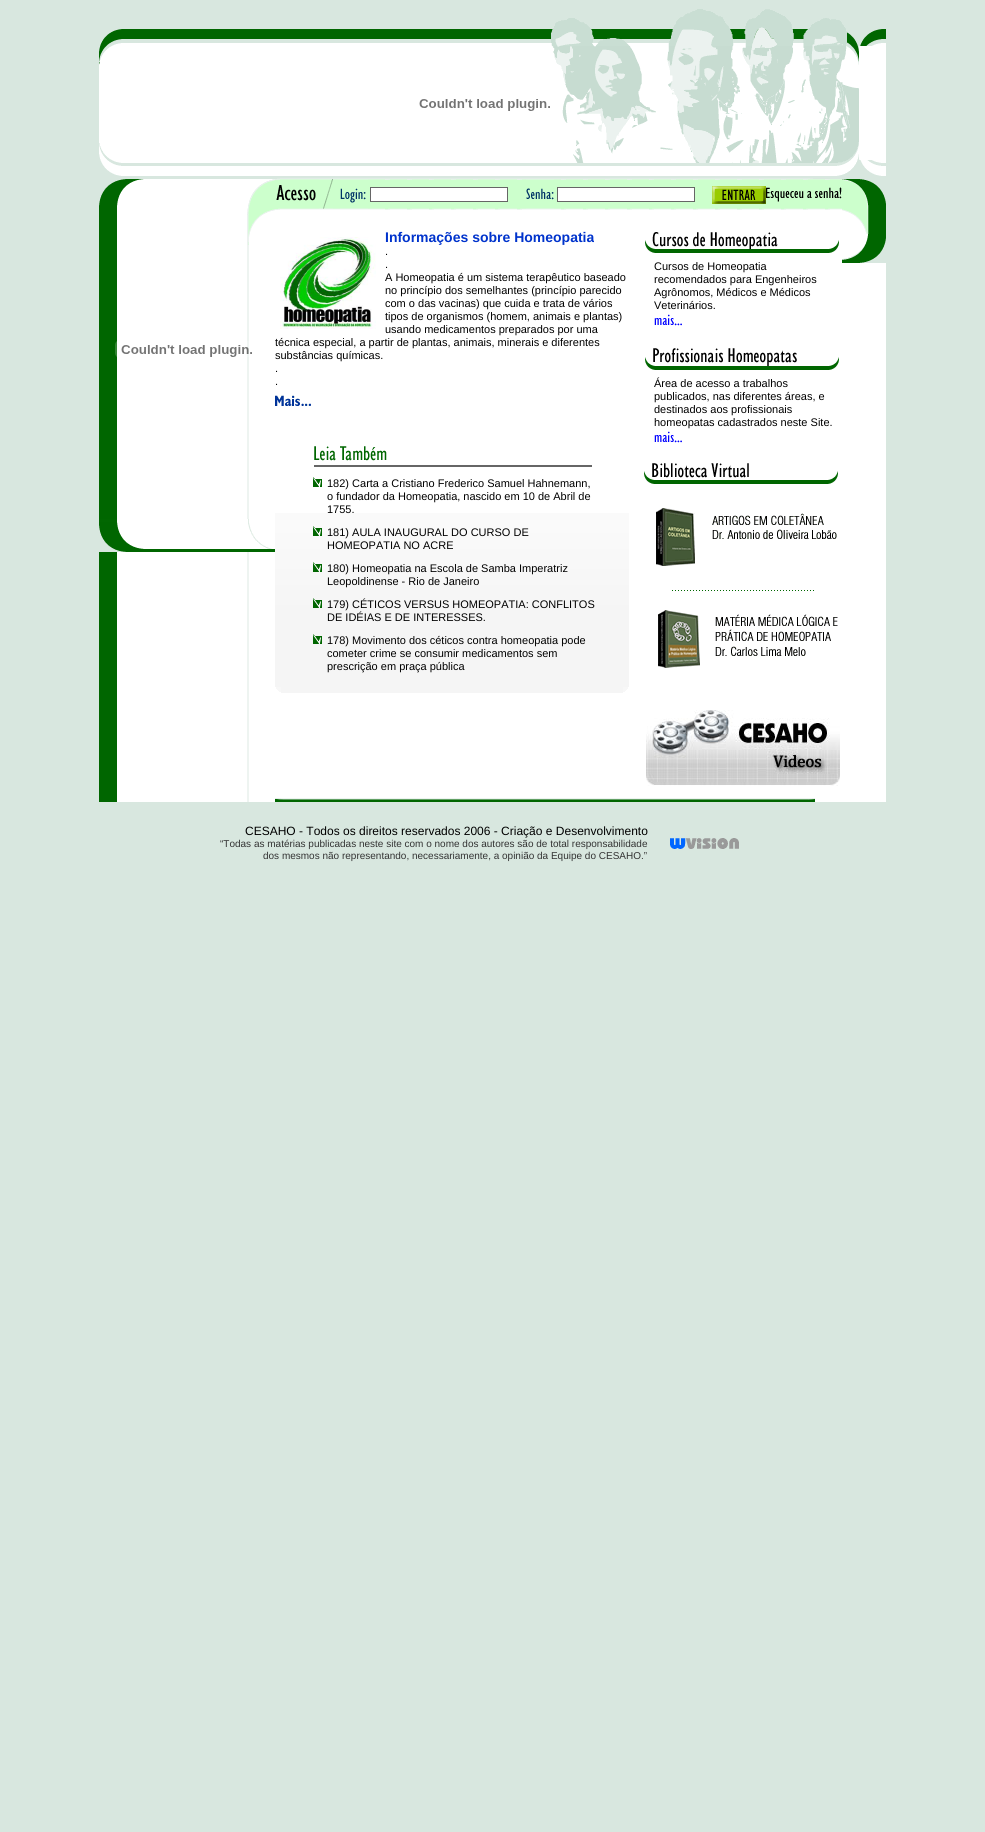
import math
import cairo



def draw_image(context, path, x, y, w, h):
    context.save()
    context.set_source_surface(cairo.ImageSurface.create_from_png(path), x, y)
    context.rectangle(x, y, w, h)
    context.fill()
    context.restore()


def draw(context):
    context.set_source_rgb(216 / 255, 231 / 255, 223 / 255)
    context.paint()
    context.set_source_rgb(1, 1, 1)
    context.rectangle(249, 46, 637, 756)
    context.fill()
    draw_image(context, "images/1.png", 99, 0, 787, 46)
    draw_image(context, "images/2.png", 99, 46, 12, 114)
    draw_image(context, "images/3.png", 111, 46, 749, 114)
    draw_image(context, "images/4.png", 419, 99, 131, 12)
    draw_image(context, "images/5.png", 99, 160, 787, 19)
    draw_image(context, "images/6.png", 99, 245, 150, 557)
    draw_image(context, "images/7.png", 99, 179, 176, 66)
    draw_image(context, "images/8.png", 115, 341, 137, 16)
    draw_image(context, "images/9.png", 99, 519, 176, 33)
    draw_image(context, "images/10.png", 842, 179, 44, 40)
    draw_image(context, "images/11.png", 868, 219, 18, 15)
    draw_image(context, "images/12.png", 858, 219, 10, 15)
    draw_image(context, "images/13.png", 842, 234, 44, 29)
    draw_image(context, "images/14.png", 275, 179, 567, 31)
    draw_image(context, "images/15.png", 276, 179, 40, 31)
    draw_image(context, "images/16.png", 319, 179, 14, 31)
    draw_image(context, "images/17.png", 340, 179, 28, 31)
    context.rectangle(370.5, 187.5, 137, 14)
    context.fill_preserve()
    context.set_source_rgb(102 / 255, 102 / 255, 102 / 255)
    context.set_line_width(1)
    context.stroke()
    draw_image(context, "images/18.png", 526, 179, 28, 31)
    context.set_source_rgb(1, 1, 1)
    context.rectangle(557.5, 187.5, 137, 14)
    context.fill_preserve()
    context.set_source_rgb(102 / 255, 102 / 255, 102 / 255)
    context.stroke()
    draw_image(context, "images/19.png", 712, 186, 54, 18)
    draw_image(context, "images/20.png", 766, 187, 76, 15)
    draw_image(context, "images/21.png", 280, 237, 96, 92)
    draw_image(context, "images/22.png", 275, 395, 36, 11)
    draw_image(context, "images/23.png", 275, 513, 11, 180)
    draw_image(context, "images/24.png", 275, 687, 6, 6)
    draw_image(context, "images/25.png", 286, 513, 332, 180)
    draw_image(context, "images/26.png", 314, 446, 278, 21)
    draw_image(context, "images/27.png", 313, 477, 9, 10)
    draw_image(context, "images/28.png", 313, 526, 9, 10)
    draw_image(context, "images/29.png", 313, 562, 9, 10)
    draw_image(context, "images/30.png", 313, 598, 9, 10)
    draw_image(context, "images/31.png", 313, 634, 9, 10)
    draw_image(context, "images/23.png", 618, 513, 11, 180)
    draw_image(context, "images/32.png", 623, 687, 6, 6)
    draw_image(context, "images/33.png", 645, 232, 194, 21)
    draw_image(context, "images/34.png", 654, 314, 28, 12)
    draw_image(context, "images/35.png", 645, 348, 194, 22)
    draw_image(context, "images/34.png", 654, 431, 28, 12)
    draw_image(context, "images/36.png", 644, 463, 194, 21)
    draw_image(context, "images/37.png", 656, 508, 181, 58)
    draw_image(context, "images/38.png", 672, 590, 142, 1)
    draw_image(context, "images/39.png", 658, 610, 180, 58)
    draw_image(context, "images/40.png", 646, 710, 194, 76)
    draw_image(context, "images/41.png", 275, 798, 540, 4)
    draw_image(context, "images/42.png", 670, 838, 69, 11)
    context.select_font_face("Liberation Sans", cairo.FontSlant.NORMAL, cairo.FontWeight.BOLD)
    context.set_font_size(14)
    context.set_source_rgb(0, 51 / 255, 204 / 255)
    context.move_to(385, 242)
    context.show_text("Informações sobre Homeopatia")
    context.select_font_face("Liberation Sans")
    context.set_font_size(11)
    context.set_source_rgb(0, 0, 0)
    context.move_to(385, 255)
    context.show_text(".")
    context.move_to(385, 268)
    context.show_text(".")
    context.move_to(385, 281)
    context.show_text("A Homeopatia é um sistema terapêutico baseado")
    context.move_to(385, 294)
    context.show_text("no princípio dos semelhantes (princípio parecido")
    context.move_to(385, 307)
    context.show_text("com o das vacinas) que cuida e trata de vários")
    context.move_to(385, 320)
    context.show_text("tipos de organismos (homem, animais e plantas)")
    context.move_to(385, 333)
    context.show_text("usando medicamentos preparados por uma")
    context.move_to(275, 346)
    context.show_text("técnica especial, a partir de plantas, animais, minerais e diferentes")
    context.move_to(275, 359)
    context.show_text("substâncias químicas.")
    context.move_to(275, 372)
    context.show_text(".")
    context.move_to(275, 385)
    context.show_text(".")
    context.move_to(327, 487)
    context.show_text("182) Carta a Cristiano Frederico Samuel Hahnemann,")
    context.move_to(327, 500)
    context.show_text("o fundador da Homeopatia, nascido em 10 de Abril de")
    context.move_to(327, 513)
    context.show_text("1755.")
    context.move_to(327, 536)
    context.show_text("181) AULA INAUGURAL DO CURSO DE")
    context.move_to(327, 549)
    context.show_text("HOMEOPATIA NO ACRE")
    context.move_to(327, 572)
    context.show_text("180) Homeopatia na Escola de Samba Imperatriz")
    context.move_to(327, 585)
    context.show_text("Leopoldinense - Rio de Janeiro")
    context.move_to(327, 608)
    context.show_text("179) CÉTICOS VERSUS HOMEOPATIA: CONFLITOS")
    context.move_to(327, 621)
    context.show_text("DE IDÉIAS E DE INTERESSES.")
    context.move_to(327, 644)
    context.show_text("178) Movimento dos céticos contra homeopatia pode")
    context.move_to(327, 657)
    context.show_text("cometer crime se consumir medicamentos sem")
    context.move_to(327, 670)
    context.show_text("prescrição em praça pública")
    context.move_to(654, 270)
    context.show_text("Cursos de Homeopatia")
    context.move_to(654, 283)
    context.show_text("recomendados para Engenheiros")
    context.move_to(654, 296)
    context.show_text("Agrônomos, Médicos e Médicos")
    context.move_to(654, 309)
    context.show_text("Veterinários.")
    context.move_to(654, 387)
    context.show_text("Área de acesso a trabalhos")
    context.move_to(654, 400)
    context.show_text("publicados, nas diferentes áreas, e")
    context.move_to(654, 413)
    context.show_text("destinados aos profissionais")
    context.move_to(654, 426)
    context.show_text("homeopatas cadastrados neste Site.")
    context.set_font_size(12)
    context.move_to(245, 835)
    context.show_text("CESAHO - Todos os direitos reservados 2006 - Criação e Desenvolvimento")
    context.set_font_size(10)
    context.set_source_rgb(51 / 255, 51 / 255, 51 / 255)
    context.move_to(220, 847)
    context.show_text("“Todas as matérias publicadas neste site com o nome dos autores são de total responsabilidade")
    context.move_to(263, 859)
    context.show_text("dos mesmos não representando, necessariamente, a opinião da Equipe do CESAHO.”")


surface = cairo.ImageSurface(cairo.Format.RGB24, 985, 1832)
context = cairo.Context(surface)
options = cairo.FontOptions()
options.set_hint_metrics(cairo.HintMetrics.OFF)
options.set_hint_style(cairo.HintStyle.NONE)
context.set_font_options(options)
context.set_miter_limit(4)
draw(context)
surface.write_to_png("out.png")
